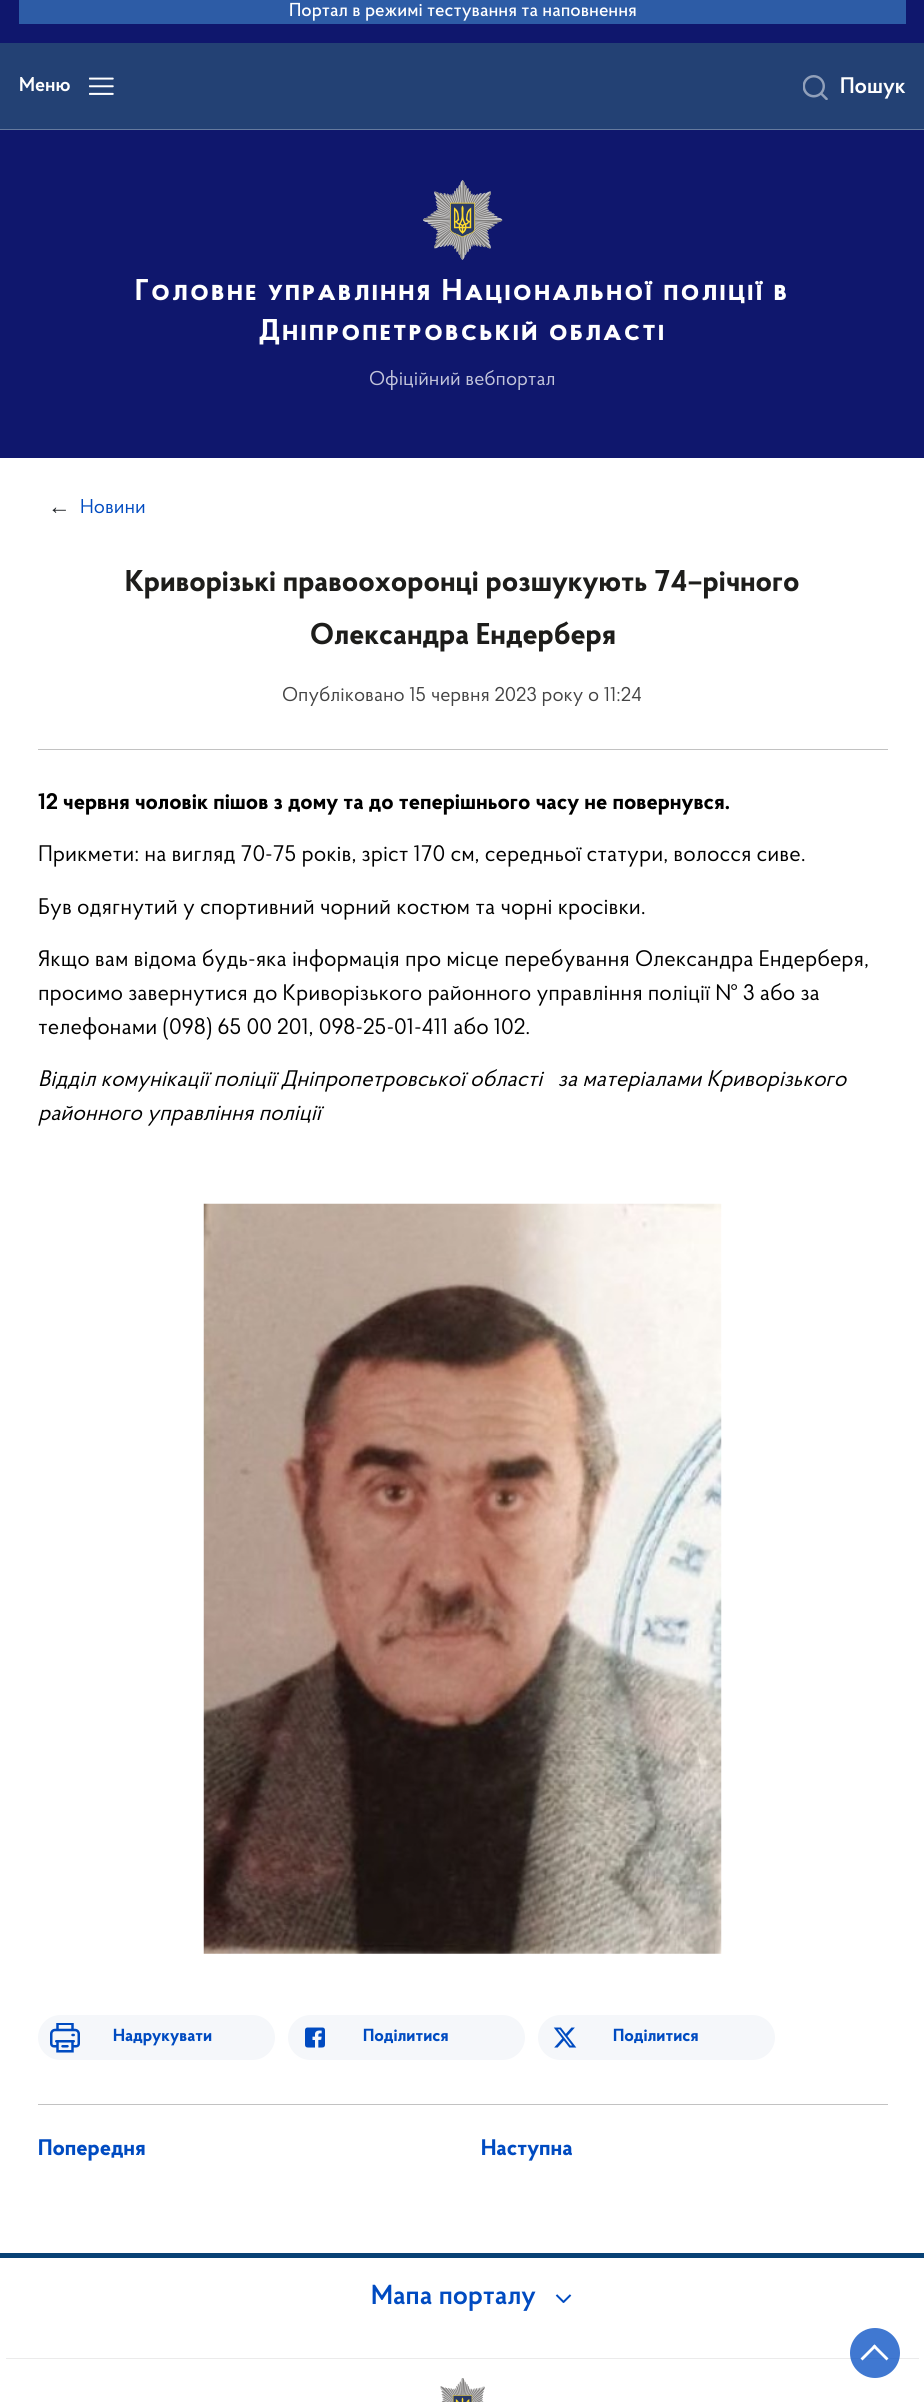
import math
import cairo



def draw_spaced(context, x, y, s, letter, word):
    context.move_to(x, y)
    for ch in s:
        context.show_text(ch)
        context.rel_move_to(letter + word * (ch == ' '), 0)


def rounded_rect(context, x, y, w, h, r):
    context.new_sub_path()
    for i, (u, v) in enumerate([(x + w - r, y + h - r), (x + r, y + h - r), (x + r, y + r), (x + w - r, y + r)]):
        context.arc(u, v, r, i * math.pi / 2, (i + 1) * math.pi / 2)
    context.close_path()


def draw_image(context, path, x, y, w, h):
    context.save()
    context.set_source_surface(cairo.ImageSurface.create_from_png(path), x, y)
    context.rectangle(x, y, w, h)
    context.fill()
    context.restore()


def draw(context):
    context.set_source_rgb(1, 1, 1)
    context.paint()
    context.set_source_rgb(15 / 255, 23 / 255, 109 / 255)
    context.rectangle(0, 0, 924, 458)
    context.fill()
    context.set_source_rgb(45 / 255, 92 / 255, 166 / 255)
    context.rectangle(19, 0, 887, 24)
    context.fill()
    context.set_source_rgb(35 / 255, 65 / 255, 116 / 255)
    context.rectangle(0, 43, 924, 86)
    context.fill()
    context.set_source_rgb(101 / 255, 122 / 255, 158 / 255)
    context.rectangle(0, 129, 924, 1)
    context.fill()
    draw_image(context, "images/1.png", 89, 77, 25, 18)
    draw_image(context, "images/2.png", 423, 180, 80, 80)
    draw_image(context, "images/3.png", 803, 75, 25, 25)
    context.set_source_rgb(194 / 255, 194 / 255, 194 / 255)
    context.rectangle(38, 749, 850, 1)
    context.fill()
    draw_image(context, "images/4.png", 203, 1203, 519, 751)
    context.set_source_rgb(245 / 255, 247 / 255, 250 / 255)
    rounded_rect(context, 38, 2015, 237, 45, 22.5)
    context.fill()
    draw_image(context, "images/5.png", 50, 2023, 30, 30)
    rounded_rect(context, 288, 2015, 237, 45, 22.5)
    context.fill()
    draw_image(context, "images/6.png", 305, 2027, 20, 21)
    rounded_rect(context, 538, 2015, 237, 45, 22.5)
    context.fill()
    draw_image(context, "images/7.png", 553, 2027, 24, 21)
    context.set_source_rgb(194 / 255, 194 / 255, 194 / 255)
    context.rectangle(38, 2104, 850, 1)
    context.fill()
    context.set_source_rgb(8 / 255, 65 / 255, 117 / 255)
    context.rectangle(0, 2253, 924, 5)
    context.fill()
    context.set_source_rgb(235 / 255, 235 / 255, 235 / 255)
    context.rectangle(6, 2358, 913, 1)
    context.fill()
    draw_image(context, "images/8.png", 555, 2294, 17, 9)
    draw_image(context, "images/9.png", 440, 2378, 45, 24)
    context.set_source_rgba(0, 75 / 255, 193 / 255, 0.75)
    context.arc(875, 2353, 25, 0, 2 * math.pi)
    context.fill()
    context.set_source_rgb(1, 1, 1)
    context.new_path()
    context.move_to(872.5, 2346.5)
    context.line_to(874.5, 2344.5)
    context.line_to(888.5, 2358.5)
    context.line_to(886.5, 2360.5)
    context.close_path()
    context.fill()
    context.new_path()
    context.move_to(874.5, 2344.5)
    context.line_to(876.5, 2346.5)
    context.line_to(862.5, 2360.5)
    context.line_to(860.5, 2358.5)
    context.close_path()
    context.fill()
    context.select_font_face("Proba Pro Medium")
    context.set_font_size(18.75)
    context.move_to(289, 16)
    context.show_text("Портал в режимі тестування та наповнення")
    context.select_font_face("Proba Pro SemiBold")
    context.set_font_size(20)
    context.move_to(19, 91)
    context.show_text("Меню")
    context.select_font_face("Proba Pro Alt", cairo.FontSlant.NORMAL, cairo.FontWeight.BOLD)
    context.set_font_size(30)
    draw_spaced(context, 135, 300, "Головне управління Національної поліції в", 2.5, 0)
    draw_spaced(context, 259, 340, "Дніпропетровській області", 2.5, 0)
    context.select_font_face("Proba Pro")
    context.set_font_size(20)
    context.set_source_rgb(195 / 255, 197 / 255, 219 / 255)
    context.move_to(369, 385)
    context.show_text("Офіційний вебпортал")
    context.select_font_face("Proba Pro SemiBold")
    context.set_font_size(22.5)
    context.set_source_rgb(1, 1, 1)
    context.move_to(840, 93)
    context.show_text("Пошук")
    context.select_font_face("Liberation Sans")
    context.set_source_rgb(33 / 255, 37 / 255, 41 / 255)
    context.move_to(48, 514)
    context.show_text("←")
    context.select_font_face("Proba Pro")
    context.set_font_size(20)
    context.set_source_rgb(0, 75 / 255, 193 / 255)
    context.move_to(80, 513)
    context.show_text("Новини")
    context.select_font_face("Proba Pro", cairo.FontSlant.NORMAL, cairo.FontWeight.BOLD)
    context.set_font_size(30)
    context.set_source_rgb(29 / 255, 29 / 255, 27 / 255)
    context.move_to(125, 591)
    context.show_text("Криворізькі правоохоронці розшукують 74–річного")
    context.move_to(310, 644)
    context.show_text("Олександра Ендерберя")
    context.select_font_face("Proba Pro")
    context.set_font_size(20)
    context.set_source_rgb(68 / 255, 68 / 255, 68 / 255)
    context.move_to(282, 701)
    context.show_text("Опубліковано 15 червня 2023 року о 11:24")
    context.select_font_face("Proba Pro", cairo.FontSlant.NORMAL, cairo.FontWeight.BOLD)
    context.set_font_size(22.5)
    context.set_source_rgb(0, 0, 0)
    context.move_to(38, 809)
    context.show_text("12 червня чоловік пішов з дому та до теперішнього часу не повернувся.")
    context.select_font_face("Proba Pro")
    context.move_to(38, 861)
    context.show_text("Прикмети: на вигляд 70-75 років, зріст 170 см, середньої статури, волосся сиве.")
    context.move_to(38, 914)
    context.show_text("Був одягнутий у спортивний чорний костюм та чорні кросівки.")
    context.move_to(38, 966)
    context.show_text("Якщо вам відома будь-яка інформація про місце перебування Олександра Ендерберя,")
    context.move_to(38, 1000)
    context.show_text("просимо завернутися до Криворізького районного управління поліції № 3 або за")
    context.move_to(38, 1034)
    context.show_text("телефонами (098) 65 00 201, 098-25-01-411 або 102.")
    context.select_font_face("Proba Pro", cairo.FontSlant.ITALIC)
    context.move_to(38, 1086)
    context.show_text("Відділ комунікації поліції Дніпропетровської області   за матеріалами Криворізького")
    context.move_to(38, 1120)
    context.show_text("районного управління поліції")
    context.select_font_face("Proba Pro", cairo.FontSlant.NORMAL, cairo.FontWeight.BOLD)
    context.set_font_size(17.5)
    context.set_source_rgb(0, 75 / 255, 193 / 255)
    context.move_to(113, 2041)
    context.show_text("Надрукувати")
    context.move_to(363, 2041)
    context.show_text("Поділитися")
    context.move_to(613, 2041)
    context.show_text("Поділитися")
    context.set_font_size(22.5)
    context.move_to(38, 2155)
    context.show_text("Попередня")
    context.move_to(481, 2155)
    context.show_text("Наступна")
    context.select_font_face("Proba Pro SemiBold")
    context.set_font_size(27.5)
    context.move_to(371, 2304)
    context.show_text("Мапа порталу")


surface = cairo.ImageSurface(cairo.Format.RGB24, 924, 2402)
context = cairo.Context(surface)
options = cairo.FontOptions()
options.set_hint_metrics(cairo.HintMetrics.OFF)
options.set_hint_style(cairo.HintStyle.NONE)
context.set_font_options(options)
context.set_miter_limit(4)
draw(context)
surface.write_to_png("out.png")
